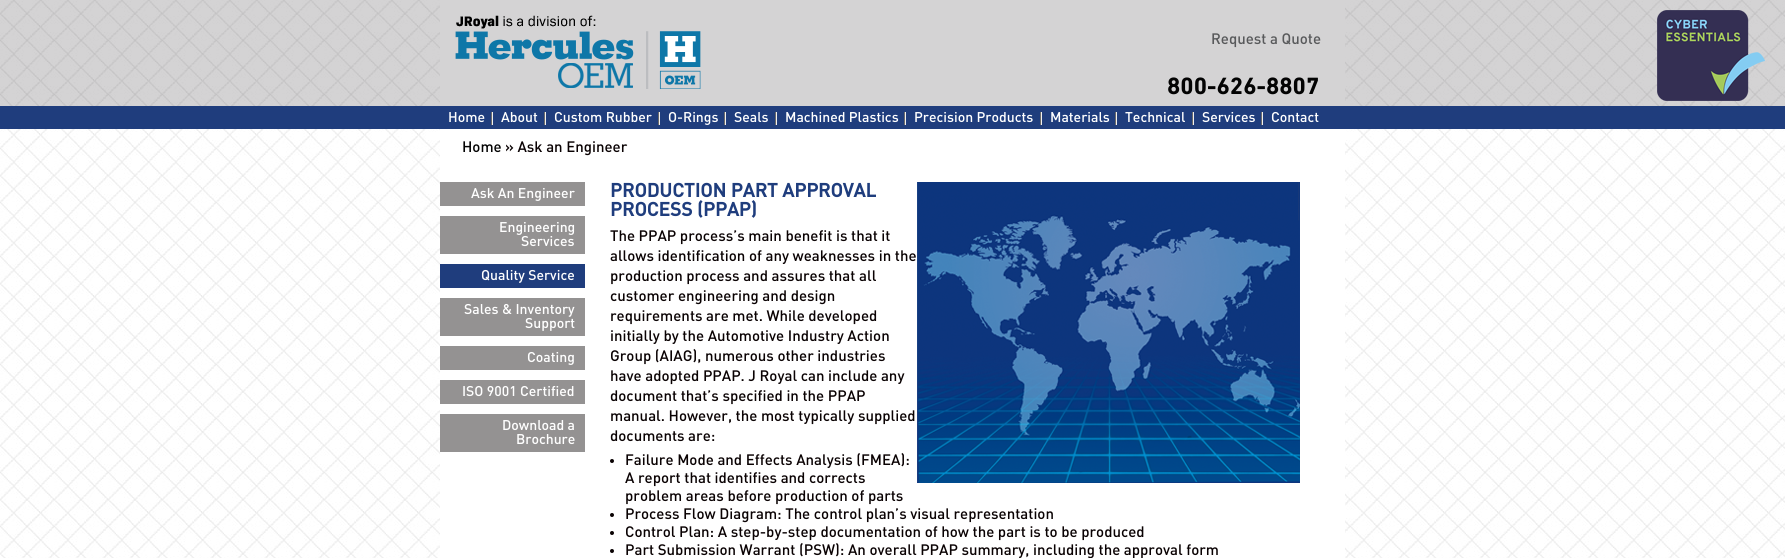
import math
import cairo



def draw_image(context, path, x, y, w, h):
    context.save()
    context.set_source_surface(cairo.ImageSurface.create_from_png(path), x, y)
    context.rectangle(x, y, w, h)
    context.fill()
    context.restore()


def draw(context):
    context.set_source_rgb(1, 1, 1)
    context.paint()
    draw_image(context, "images/1.png", 0, 0, 1785, 558)
    context.set_source_rgba(40 / 255, 35 / 255, 40 / 255, 0.2)
    context.rectangle(0, 0, 1785, 106)
    context.fill()
    context.set_source_rgb(212 / 255, 211 / 255, 212 / 255)
    context.rectangle(440, 0, 905, 106)
    context.fill()
    draw_image(context, "images/2.png", 455, 15, 246, 74)
    draw_image(context, "images/3.png", 1657, 10, 108, 91)
    context.set_source_rgb(31 / 255, 61 / 255, 125 / 255)
    context.rectangle(0, 106, 1785, 23)
    context.fill()
    draw_image(context, "images/4.png", 491, 112, 2, 13)
    draw_image(context, "images/4.png", 544, 112, 2, 13)
    draw_image(context, "images/4.png", 658, 112, 2, 13)
    draw_image(context, "images/4.png", 724, 112, 2, 13)
    draw_image(context, "images/4.png", 775, 112, 2, 13)
    draw_image(context, "images/4.png", 904, 112, 2, 13)
    draw_image(context, "images/4.png", 1040, 112, 2, 13)
    draw_image(context, "images/4.png", 1115, 112, 2, 13)
    draw_image(context, "images/4.png", 1192, 112, 2, 13)
    draw_image(context, "images/4.png", 1261, 112, 2, 13)
    context.set_source_rgb(1, 1, 1)
    context.rectangle(440, 129, 905, 429)
    context.fill()
    context.set_source_rgb(148 / 255, 146 / 255, 146 / 255)
    context.rectangle(440, 182, 145, 24)
    context.fill()
    context.rectangle(440, 216, 145, 38)
    context.fill()
    context.set_source_rgb(31 / 255, 61 / 255, 125 / 255)
    context.rectangle(440, 264, 145, 24)
    context.fill()
    context.set_source_rgb(148 / 255, 146 / 255, 146 / 255)
    context.rectangle(440, 298, 145, 38)
    context.fill()
    context.rectangle(440, 346, 145, 24)
    context.fill()
    context.rectangle(440, 380, 145, 24)
    context.fill()
    context.rectangle(440, 414, 145, 38)
    context.fill()
    draw_image(context, "images/5.png", 917, 182, 383, 301)
    context.set_source_rgb(10 / 255, 2 / 255, 3 / 255)
    context.arc(612, 461, 2, 0, 2 * math.pi)
    context.fill()
    context.arc(612, 515, 2, 0, 2 * math.pi)
    context.fill()
    context.arc(612, 533, 2, 0, 2 * math.pi)
    context.fill()
    context.arc(612, 551, 2, 0, 2 * math.pi)
    context.fill()
    context.select_font_face("DIN Medium")
    context.set_font_size(15)
    context.set_source_rgb(88 / 255, 89 / 255, 91 / 255)
    context.move_to(1211, 44)
    context.show_text("Request a Quote")
    context.select_font_face("DIN Next", cairo.FontSlant.NORMAL, cairo.FontWeight.BOLD)
    context.set_font_size(24)
    context.set_source_rgb(3 / 255, 3 / 255, 3 / 255)
    context.move_to(1167, 94)
    context.show_text("800-626-8807")
    context.select_font_face("DIN Medium")
    context.set_font_size(14)
    context.set_source_rgb(1, 1, 1)
    context.move_to(448, 122)
    context.show_text("Home")
    context.move_to(501, 122)
    context.show_text("About")
    context.move_to(554, 122)
    context.show_text("Custom Rubber")
    context.move_to(668, 122)
    context.show_text("O-Rings")
    context.move_to(734, 122)
    context.show_text("Seals")
    context.move_to(785, 122)
    context.show_text("Machined Plastics")
    context.move_to(914, 122)
    context.show_text("Precision Products")
    context.move_to(1050, 122)
    context.show_text("Materials")
    context.move_to(1125, 122)
    context.show_text("Technical")
    context.move_to(1202, 122)
    context.show_text("Services")
    context.move_to(1271, 122)
    context.show_text("Contact")
    context.set_font_size(15)
    context.set_source_rgb(3 / 255, 3 / 255, 3 / 255)
    context.move_to(462, 152)
    context.show_text("Home")
    context.set_source_rgb(10 / 255, 2 / 255, 3 / 255)
    context.move_to(505, 152)
    context.show_text("» Ask an Engineer")
    context.set_font_size(14)
    context.set_source_rgb(1, 1, 1)
    context.move_to(471, 198)
    context.show_text("Ask An Engineer")
    context.move_to(499, 232)
    context.show_text("Engineering")
    context.move_to(521, 246)
    context.show_text("Services")
    context.move_to(481, 280)
    context.show_text("Quality Service")
    context.move_to(464, 314)
    context.show_text("Sales & Inventory")
    context.move_to(525, 328)
    context.show_text("Support")
    context.move_to(527, 362)
    context.show_text("Coating")
    context.move_to(462, 396)
    context.show_text("ISO 9001 Certified")
    context.move_to(502, 430)
    context.show_text("Download a")
    context.move_to(516, 444)
    context.show_text("Brochure")
    context.select_font_face("DIN", cairo.FontSlant.NORMAL, cairo.FontWeight.BOLD)
    context.set_font_size(19)
    context.set_source_rgb(31 / 255, 61 / 255, 125 / 255)
    context.move_to(610, 197)
    context.show_text("PRODUCTION PART APPROVAL")
    context.move_to(610, 216)
    context.show_text("PROCESS (PPAP)")
    context.select_font_face("DIN Medium")
    context.set_font_size(15)
    context.set_source_rgb(10 / 255, 2 / 255, 3 / 255)
    context.move_to(610, 241)
    context.show_text("The PPAP process’s main benefit is that it")
    context.move_to(610, 261)
    context.show_text("allows identification of any weaknesses in the")
    context.move_to(610, 281)
    context.show_text("production process and assures that all")
    context.move_to(610, 301)
    context.show_text("customer engineering and design")
    context.move_to(610, 321)
    context.show_text("requirements are met. While developed")
    context.move_to(610, 341)
    context.show_text("initially by the Automotive Industry Action")
    context.move_to(610, 361)
    context.show_text("Group (AIAG), numerous other industries")
    context.move_to(610, 381)
    context.show_text("have adopted PPAP. J Royal can include any")
    context.move_to(610, 401)
    context.show_text("document that’s specified in the PPAP")
    context.move_to(610, 421)
    context.show_text("manual. However, the most typically supplied")
    context.move_to(610, 441)
    context.show_text("documents are:")
    context.move_to(625, 465)
    context.show_text("Failure Mode and Effects Analysis (FMEA):")
    context.move_to(625, 483)
    context.show_text("A report that identifies and corrects")
    context.move_to(625, 501)
    context.show_text("problem areas before production of parts")
    context.move_to(625, 519)
    context.show_text("Process Flow Diagram: The control plan’s visual representation")
    context.move_to(625, 537)
    context.show_text("Control Plan: A step-by-step documentation of how the part is to be produced")
    context.move_to(625, 555)
    context.show_text("Part Submission Warrant (PSW): An overall PPAP summary, including the approval form")


surface = cairo.ImageSurface(cairo.Format.RGB24, 1785, 558)
context = cairo.Context(surface)
options = cairo.FontOptions()
options.set_hint_metrics(cairo.HintMetrics.OFF)
options.set_hint_style(cairo.HintStyle.NONE)
context.set_font_options(options)
context.set_miter_limit(4)
draw(context)
surface.write_to_png("out.png")
